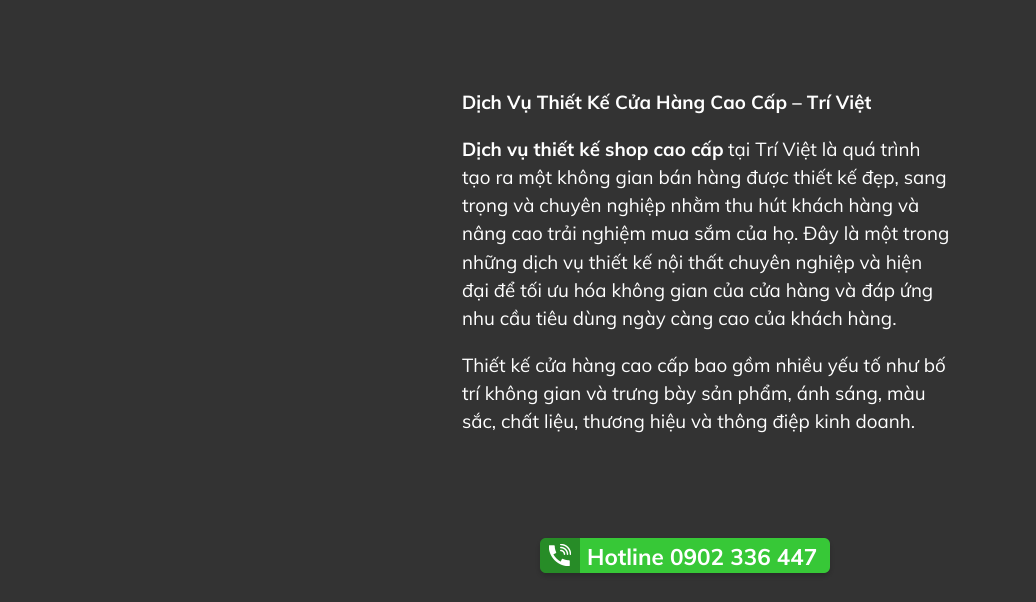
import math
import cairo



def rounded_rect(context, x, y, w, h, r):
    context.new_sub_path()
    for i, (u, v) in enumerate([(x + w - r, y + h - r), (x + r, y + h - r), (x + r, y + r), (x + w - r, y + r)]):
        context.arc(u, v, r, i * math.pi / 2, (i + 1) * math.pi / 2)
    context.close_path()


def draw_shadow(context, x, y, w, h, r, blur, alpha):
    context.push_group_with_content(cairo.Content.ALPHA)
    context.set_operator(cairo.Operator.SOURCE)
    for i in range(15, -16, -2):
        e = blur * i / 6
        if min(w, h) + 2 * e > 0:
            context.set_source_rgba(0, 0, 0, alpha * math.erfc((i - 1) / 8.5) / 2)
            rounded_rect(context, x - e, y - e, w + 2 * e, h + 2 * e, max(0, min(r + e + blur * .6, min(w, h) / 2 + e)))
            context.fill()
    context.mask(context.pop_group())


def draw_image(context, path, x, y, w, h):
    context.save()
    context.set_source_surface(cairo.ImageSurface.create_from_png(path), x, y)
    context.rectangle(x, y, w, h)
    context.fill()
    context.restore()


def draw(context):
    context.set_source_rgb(51 / 255, 51 / 255, 51 / 255)
    context.paint()
    context.set_source_rgb(0, 0, 0)
    draw_shadow(context, 540, 541, 290, 35, 6, 3, 0.2)
    context.set_source_rgb(55 / 255, 200 / 255, 55 / 255)
    rounded_rect(context, 540, 538, 290, 35, 6)
    context.fill()
    context.set_source_rgba(0, 0, 0, 0.3)
    context.new_path()
    context.move_to(546, 538)
    context.line_to(580, 538)
    context.line_to(580, 573)
    context.line_to(546, 573)
    context.curve_to(542.5, 573, 540, 570.5, 540, 567)
    context.line_to(540, 544)
    context.curve_to(540, 540.5, 542.5, 538, 546, 538)
    context.close_path()
    context.fill()
    draw_image(context, "images/1.png", 549, 544, 22, 22)
    context.select_font_face("Muli", cairo.FontSlant.NORMAL, cairo.FontWeight.BOLD)
    context.set_font_size(18.75)
    context.set_source_rgb(1, 1, 1)
    context.move_to(462, 109)
    context.show_text("Dịch Vụ Thiết Kế Cửa Hàng Cao Cấp – Trí Việt")
    context.move_to(462, 156)
    context.show_text("Dịch vụ thiết kế shop cao cấp")
    context.select_font_face("Muli")
    context.move_to(728, 156)
    context.show_text("tại Trí Việt là quá trình")
    context.move_to(462, 184)
    context.show_text("tạo ra một không gian bán hàng được thiết kế đẹp, sang")
    context.move_to(462, 212)
    context.show_text("trọng và chuyên nghiệp nhằm thu hút khách hàng và")
    context.move_to(462, 240)
    context.show_text("nâng cao trải nghiệm mua sắm của họ. Đây là một trong")
    context.move_to(462, 269)
    context.show_text("những dịch vụ thiết kế nội thất chuyên nghiệp và hiện")
    context.move_to(462, 297)
    context.show_text("đại để tối ưu hóa không gian của cửa hàng và đáp ứng")
    context.move_to(462, 325)
    context.show_text("nhu cầu tiêu dùng ngày càng cao của khách hàng.")
    context.move_to(462, 372)
    context.show_text("Thiết kế cửa hàng cao cấp bao gồm nhiều yếu tố như bố")
    context.move_to(462, 400)
    context.show_text("trí không gian và trưng bày sản phẩm, ánh sáng, màu")
    context.move_to(462, 428)
    context.show_text("sắc, chất liệu, thương hiệu và thông điệp kinh doanh.")
    context.select_font_face("Muli", cairo.FontSlant.NORMAL, cairo.FontWeight.BOLD)
    context.set_font_size(22.5)
    context.move_to(587, 565)
    context.show_text("Hotline 0902 336 447")


surface = cairo.ImageSurface(cairo.Format.RGB24, 1036, 602)
context = cairo.Context(surface)
options = cairo.FontOptions()
options.set_hint_metrics(cairo.HintMetrics.OFF)
options.set_hint_style(cairo.HintStyle.NONE)
context.set_font_options(options)
context.set_miter_limit(4)
draw(context)
surface.write_to_png("out.png")
